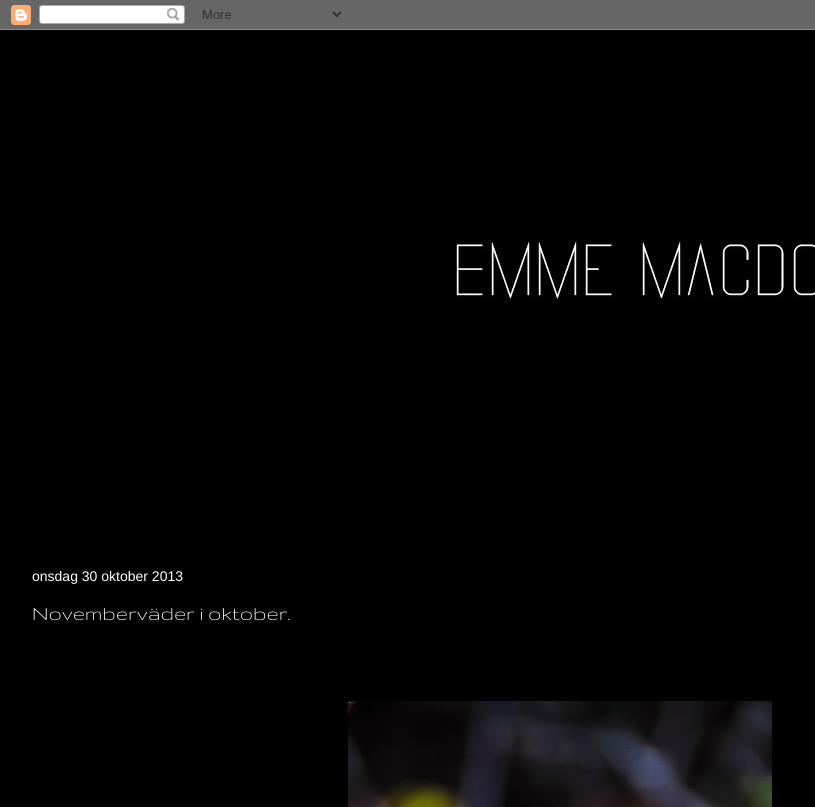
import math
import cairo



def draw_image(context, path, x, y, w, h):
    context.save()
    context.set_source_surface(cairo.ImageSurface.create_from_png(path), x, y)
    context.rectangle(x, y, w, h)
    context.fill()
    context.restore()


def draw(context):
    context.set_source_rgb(0, 0, 0)
    context.paint()
    draw_image(context, "images/1.png", 0, 0, 815, 30)
    draw_image(context, "images/2.png", 456, 238, 359, 64)
    draw_image(context, "images/3.png", 348, 701, 424, 106)
    context.select_font_face("Liberation Sans")
    context.set_font_size(14)
    context.set_source_rgb(1, 1, 1)
    context.move_to(32, 581)
    context.show_text("onsdag 30 oktober 2013")
    context.select_font_face("Gruppo")
    context.set_font_size(22)
    context.move_to(32, 620)
    context.show_text("Novemberväder i oktober.")


surface = cairo.ImageSurface(cairo.Format.RGB24, 815, 807)
context = cairo.Context(surface)
options = cairo.FontOptions()
options.set_hint_metrics(cairo.HintMetrics.OFF)
options.set_hint_style(cairo.HintStyle.NONE)
context.set_font_options(options)
context.set_miter_limit(4)
draw(context)
surface.write_to_png("out.png")
